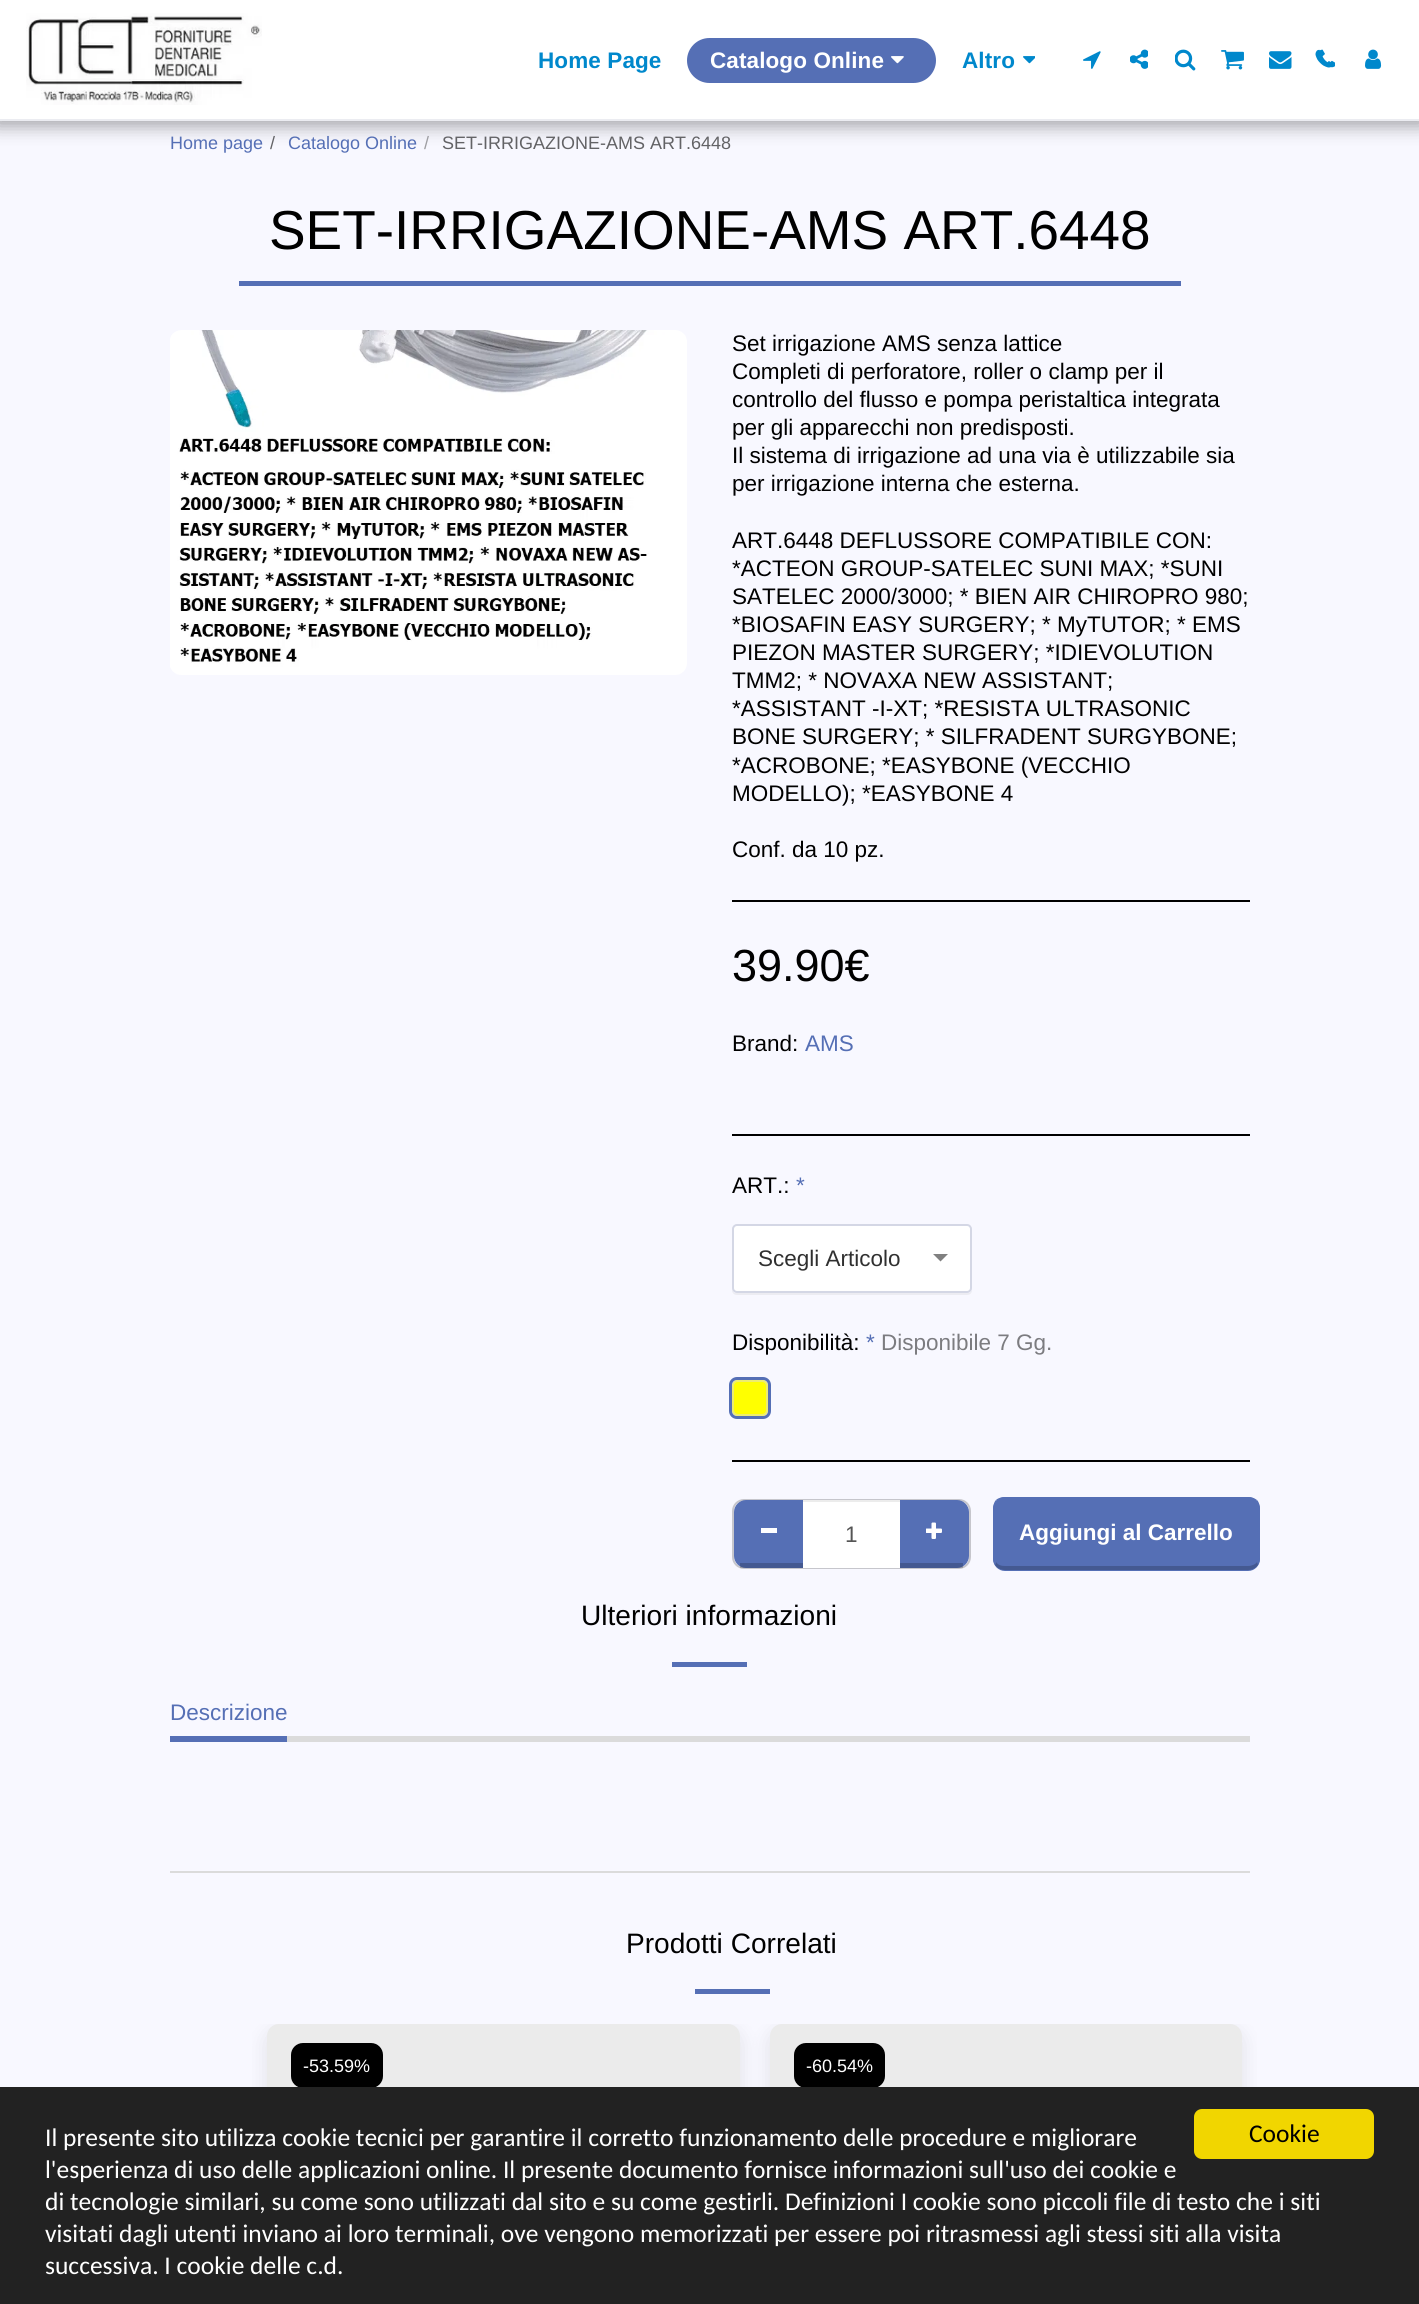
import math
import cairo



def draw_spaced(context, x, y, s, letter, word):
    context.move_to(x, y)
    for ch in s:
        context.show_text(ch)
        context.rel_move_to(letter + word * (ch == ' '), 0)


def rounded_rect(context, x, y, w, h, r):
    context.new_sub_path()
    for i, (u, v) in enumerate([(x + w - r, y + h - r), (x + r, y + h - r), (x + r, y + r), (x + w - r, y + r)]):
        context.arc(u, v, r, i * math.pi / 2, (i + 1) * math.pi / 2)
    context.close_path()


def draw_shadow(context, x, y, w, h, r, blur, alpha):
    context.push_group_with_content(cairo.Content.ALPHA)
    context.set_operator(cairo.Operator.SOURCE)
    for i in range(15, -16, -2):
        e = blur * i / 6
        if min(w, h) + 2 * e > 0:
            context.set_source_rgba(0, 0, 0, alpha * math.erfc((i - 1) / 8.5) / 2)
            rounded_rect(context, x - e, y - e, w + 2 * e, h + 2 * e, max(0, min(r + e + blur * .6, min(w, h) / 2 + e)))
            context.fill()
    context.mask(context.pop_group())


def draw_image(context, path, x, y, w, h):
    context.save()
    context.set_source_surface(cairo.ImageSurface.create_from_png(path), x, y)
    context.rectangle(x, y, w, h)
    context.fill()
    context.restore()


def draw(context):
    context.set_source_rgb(248 / 255, 248 / 255, 1)
    context.paint()
    context.set_source_rgb(0, 0, 0)
    draw_shadow(context, -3, 0, 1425, 126, 0, 9, 0.35)
    context.set_source_rgb(1, 1, 1)
    context.rectangle(0, 0, 1419, 119)
    context.fill()
    context.set_source_rgb(235 / 255, 236 / 255, 241 / 255)
    context.rectangle(0, 119, 1419, 2)
    context.fill()
    draw_image(context, "images/1.png", 26, 13, 236, 92)
    context.set_source_rgb(85 / 255, 111 / 255, 181 / 255)
    rounded_rect(context, 687, 38, 249, 45, 22.5)
    context.fill()
    draw_image(context, "images/2.png", 891, 56, 13, 8)
    draw_image(context, "images/3.png", 1023, 56, 12, 8)
    draw_image(context, "images/4.png", 1083, 51, 18, 18)
    draw_image(context, "images/5.png", 1130, 49, 18, 20)
    draw_image(context, "images/6.png", 1175, 49, 21, 22)
    draw_image(context, "images/7.png", 1221, 50, 23, 20)
    draw_image(context, "images/8.png", 1269, 51, 23, 18)
    draw_image(context, "images/9.png", 1319, 49, 16, 19)
    draw_image(context, "images/10.png", 1315, 49, 16, 19)
    draw_image(context, "images/11.png", 1365, 49, 17, 20)
    context.rectangle(239, 281, 942, 5)
    context.fill()
    draw_image(context, "images/12.png", 170, 330, 517, 345)
    context.set_source_rgb(0, 0, 0)
    context.rectangle(732, 900, 518, 2)
    context.fill()
    context.rectangle(732, 1134, 518, 2)
    context.fill()
    context.set_source_rgb(236 / 255, 236 / 255, 242 / 255)
    context.new_path()
    context.move_to(732, 1288)
    context.line_to(732, 1290)
    context.curve_to(732, 1293, 734, 1295, 737, 1295)
    context.line_to(967, 1295)
    context.curve_to(970, 1295, 972, 1293, 972, 1290)
    context.line_to(972, 1288)
    context.curve_to(972, 1291, 970, 1293, 968, 1293)
    context.line_to(736, 1293)
    context.curve_to(734, 1293, 732, 1291, 732, 1288)
    context.close_path()
    context.fill()
    context.set_source_rgb(1, 1, 1)
    rounded_rect(context, 733, 1225, 238, 67, 4)
    context.fill_preserve()
    context.set_source_rgb(212 / 255, 215 / 255, 229 / 255)
    context.stroke()
    context.set_source_rgb(128 / 255, 128 / 255, 128 / 255)
    context.new_path()
    context.move_to(933, 1254)
    context.line_to(948, 1254)
    context.line_to(940.5, 1261.5)
    context.close_path()
    context.fill()
    context.set_source_rgb(1, 1, 0)
    rounded_rect(context, 732, 1380, 36, 36, 6)
    context.fill()
    rounded_rect(context, 733, 1381, 34, 34, 5)
    context.set_source_rgba(221 / 255, 221 / 255, 221 / 255, 0.5)
    context.stroke()
    rounded_rect(context, 730.5, 1378.5, 39, 39, 6.5)
    context.set_source_rgb(85 / 255, 111 / 255, 181 / 255)
    context.set_line_width(3)
    context.stroke()
    context.set_source_rgb(0, 0, 0)
    context.rectangle(732, 1460, 518, 2)
    context.fill()
    rounded_rect(context, 733, 1500, 237, 68, 11)
    context.set_source_rgb(198 / 255, 198 / 255, 204 / 255)
    context.set_line_width(2)
    context.stroke()
    context.set_source_rgb(85 / 255, 111 / 255, 181 / 255)
    context.new_path()
    context.move_to(746, 1500)
    context.line_to(804, 1500)
    context.line_to(804, 1568)
    context.line_to(746, 1568)
    context.curve_to(739.5, 1568, 734, 1562.5, 734, 1556)
    context.line_to(734, 1512)
    context.curve_to(734, 1505.5, 739.5, 1500, 746, 1500)
    context.close_path()
    context.fill()
    context.set_source_rgba(0, 0, 0, 0.2)
    context.rectangle(740, 1563, 64, 5)
    context.fill()
    context.set_source_rgb(1, 1, 1)
    context.rectangle(761, 1528, 16, 5)
    context.fill()
    context.set_source_rgb(85 / 255, 111 / 255, 181 / 255)
    context.new_path()
    context.move_to(899, 1500)
    context.line_to(957, 1500)
    context.curve_to(963.5, 1500, 969, 1505.5, 969, 1512)
    context.line_to(969, 1556)
    context.curve_to(969, 1562.5, 963.5, 1568, 957, 1568)
    context.line_to(899, 1568)
    context.close_path()
    context.fill()
    context.set_source_rgba(0, 0, 0, 0.2)
    context.rectangle(899, 1563, 64, 5)
    context.fill()
    context.set_source_rgb(1, 1, 1)
    context.rectangle(803, 1502, 97, 66)
    context.fill()
    context.set_source_rgb(236 / 255, 236 / 255, 236 / 255)
    context.rectangle(803, 1500, 97, 2)
    context.fill()
    draw_image(context, "images/13.png", 926, 1522, 16, 17)
    context.set_source_rgb(85 / 255, 111 / 255, 181 / 255)
    rounded_rect(context, 993, 1497, 267, 74, 12)
    context.fill()
    context.new_path()
    context.move_to(1005, 1497)
    context.curve_to(1002, 1497, 998, 1498, 996, 1500)
    context.line_to(997, 1501)
    context.curve_to(999, 1499, 1002, 1498, 1005, 1498)
    context.line_to(1248, 1498)
    context.curve_to(1251, 1498, 1254, 1499, 1255, 1502)
    context.line_to(1257, 1500)
    context.curve_to(1254, 1498, 1252, 1497, 1248, 1497)
    context.close_path()
    context.fill()
    context.new_path()
    context.move_to(1260, 1558)
    context.line_to(1260, 1509)
    context.curve_to(1260, 1506, 1259, 1502, 1257, 1500)
    context.line_to(1255, 1502)
    context.curve_to(1257, 1503, 1258, 1506, 1258, 1509)
    context.line_to(1258, 1558)
    context.line_to(1257, 1562)
    context.line_to(1258, 1565)
    context.curve_to(1259, 1563, 1260, 1561, 1260, 1558)
    context.close_path()
    context.fill()
    context.set_source_rgba(0, 0, 0, 0.2)
    context.new_path()
    context.move_to(1258, 1565)
    context.curve_to(1256, 1568, 1252, 1570, 1248, 1570)
    context.line_to(1005, 1570)
    context.curve_to(1001, 1570, 997, 1568, 995, 1565)
    context.line_to(996, 1562)
    context.curve_to(998, 1565, 1001, 1566, 1005, 1566)
    context.line_to(1248, 1566)
    context.curve_to(1252, 1566, 1256, 1564, 1257, 1562)
    context.close_path()
    context.fill()
    context.set_source_rgb(85 / 255, 111 / 255, 181 / 255)
    context.new_path()
    context.move_to(993, 1509)
    context.line_to(993, 1558)
    context.curve_to(993, 1561, 994, 1563, 995, 1565)
    context.line_to(996, 1562)
    context.curve_to(995, 1561, 994, 1560, 994, 1558)
    context.line_to(994, 1509)
    context.curve_to(994, 1506, 995, 1503, 997, 1501)
    context.line_to(996, 1500)
    context.curve_to(994, 1502, 993, 1506, 993, 1509)
    context.close_path()
    context.fill()
    context.rectangle(672, 1662, 75, 5)
    context.fill()
    context.set_source_rgb(219 / 255, 219 / 255, 219 / 255)
    context.rectangle(287, 1736, 963, 6)
    context.fill()
    context.set_source_rgb(85 / 255, 111 / 255, 181 / 255)
    context.rectangle(170, 1736, 117, 6)
    context.fill()
    context.set_source_rgb(219 / 255, 219 / 255, 219 / 255)
    context.rectangle(170, 1871, 1080, 2)
    context.fill()
    context.set_source_rgb(85 / 255, 111 / 255, 181 / 255)
    context.rectangle(695, 1989, 75, 5)
    context.fill()
    context.save()
    context.rectangle(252, 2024, 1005, 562)
    context.clip()
    context.set_source_rgb(129 / 255, 129 / 255, 129 / 255)
    draw_shadow(context, 267, 2031, 473, 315, 12, 10, 0.2)
    context.restore()
    context.set_source_rgb(235 / 255, 235 / 255, 235 / 255)
    rounded_rect(context, 267, 2024, 473, 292, 12)
    context.fill()
    context.set_source_rgb(0, 0, 0)
    rounded_rect(context, 291, 2043, 92, 45, 12)
    context.fill()
    context.save()
    context.rectangle(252, 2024, 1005, 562)
    context.clip()
    context.set_source_rgb(129 / 255, 129 / 255, 129 / 255)
    draw_shadow(context, 770, 2031, 472, 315, 12, 10, 0.2)
    context.restore()
    context.set_source_rgb(235 / 255, 235 / 255, 235 / 255)
    rounded_rect(context, 770, 2024, 472, 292, 12)
    context.fill()
    context.set_source_rgb(0, 0, 0)
    rounded_rect(context, 794, 2043, 91, 45, 12)
    context.fill()
    context.set_source_rgb(34 / 255, 34 / 255, 34 / 255)
    context.rectangle(0, 2087, 1419, 217)
    context.fill()
    context.set_source_rgb(241 / 255, 214 / 255, 0)
    rounded_rect(context, 1194, 2109, 180, 50, 8)
    context.fill()
    context.select_font_face("Liberation Sans", cairo.FontSlant.NORMAL, cairo.FontWeight.BOLD)
    context.set_font_size(22.5)
    context.set_source_rgb(0, 136 / 255, 204 / 255)
    draw_spaced(context, 538, 68, "Home Page", 0.1, 0)
    context.set_source_rgb(1, 1, 1)
    draw_spaced(context, 710, 68, "Catalogo Online", 0.1, 0)
    context.set_source_rgb(0, 136 / 255, 204 / 255)
    draw_spaced(context, 962, 68, "Altro", 0.1, 0)
    context.select_font_face("Liberation Sans")
    context.set_font_size(18)
    context.set_source_rgb(85 / 255, 111 / 255, 181 / 255)
    context.move_to(170, 149)
    context.show_text("Home page")
    context.set_source_rgb(99 / 255, 99 / 255, 102 / 255)
    context.move_to(270, 149)
    context.show_text("/")
    context.set_source_rgb(85 / 255, 111 / 255, 181 / 255)
    context.move_to(288, 149)
    context.show_text("Catalogo Online")
    context.set_source_rgb(159 / 255, 159 / 255, 163 / 255)
    context.move_to(424, 149)
    context.show_text("/")
    context.set_source_rgb(99 / 255, 99 / 255, 102 / 255)
    context.move_to(442, 149)
    context.show_text("SET-IRRIGAZIONE-AMS ART.6448")
    context.set_font_size(54.9)
    context.set_source_rgb(0, 0, 0)
    context.move_to(269, 249)
    context.show_text("SET-IRRIGAZIONE-AMS ART.6448")
    context.set_font_size(22.5)
    context.move_to(732, 351)
    context.show_text("Set irrigazione AMS senza lattice")
    context.move_to(732, 379)
    context.show_text("Completi di perforatore, roller o clamp per il")
    context.move_to(732, 407)
    context.show_text("controllo del flusso e pompa peristaltica integrata")
    context.move_to(732, 435)
    context.show_text("per gli apparecchi non predisposti.")
    context.move_to(732, 463)
    context.show_text("Il sistema di irrigazione ad una via è utilizzabile sia")
    context.move_to(732, 491)
    context.show_text("per irrigazione interna che esterna.")
    context.move_to(732, 548)
    context.show_text("ART.6448 DEFLUSSORE COMPATIBILE CON:")
    context.move_to(732, 576)
    context.show_text("*ACTEON GROUP-SATELEC SUNI MAX; *SUNI")
    context.move_to(732, 604)
    context.show_text("SATELEC 2000/3000; * BIEN AIR CHIROPRO 980;")
    context.move_to(732, 632)
    context.show_text("*BIOSAFIN EASY SURGERY; * MyTUTOR; * EMS")
    context.move_to(732, 660)
    context.show_text("PIEZON MASTER SURGERY; *IDIEVOLUTION")
    context.move_to(732, 688)
    context.show_text("TMM2; * NOVAXA NEW ASSISTANT;")
    context.move_to(732, 716)
    context.show_text("*ASSISTANT -I-XT; *RESISTA ULTRASONIC")
    context.move_to(732, 744)
    context.show_text("BONE SURGERY; * SILFRADENT SURGYBONE;")
    context.move_to(732, 773)
    context.show_text("*ACROBONE; *EASYBONE (VECCHIO")
    context.move_to(732, 801)
    context.show_text("MODELLO); *EASYBONE 4")
    context.move_to(732, 857)
    context.show_text("Conf. da 10 pz.")
    context.set_font_size(45)
    context.move_to(732, 981)
    context.show_text("39.90€")
    context.set_font_size(22.5)
    context.move_to(732, 1051)
    context.show_text("Brand:")
    context.set_source_rgb(85 / 255, 111 / 255, 181 / 255)
    context.move_to(805, 1051)
    context.show_text("AMS")
    context.set_source_rgb(0, 0, 0)
    context.move_to(732, 1193)
    context.show_text("ART.:")
    context.set_source_rgb(85 / 255, 111 / 255, 181 / 255)
    context.move_to(796, 1193)
    context.show_text("*")
    context.set_source_rgb(48 / 255, 48 / 255, 48 / 255)
    context.move_to(758, 1266)
    context.show_text("Scegli Articolo")
    context.set_source_rgb(0, 0, 0)
    context.move_to(732, 1350)
    context.show_text("Disponibilità:")
    context.set_source_rgb(85 / 255, 111 / 255, 181 / 255)
    context.move_to(866, 1350)
    context.show_text("*")
    context.set_source_rgb(124 / 255, 124 / 255, 128 / 255)
    context.move_to(881, 1350)
    context.show_text("Disponibile 7 Gg.")
    context.set_source_rgb(85 / 255, 85 / 255, 85 / 255)
    context.move_to(845, 1542)
    context.show_text("1")
    context.select_font_face("Liberation Sans", cairo.FontSlant.NORMAL, cairo.FontWeight.BOLD)
    context.set_source_rgb(1, 1, 1)
    context.move_to(1019, 1540)
    context.show_text("Aggiungi al Carrello")
    context.select_font_face("Liberation Sans")
    context.set_font_size(28.1)
    context.set_source_rgb(0, 0, 0)
    context.move_to(581, 1625)
    context.show_text("Ulteriori informazioni")
    context.set_font_size(22.5)
    context.set_source_rgb(85 / 255, 111 / 255, 181 / 255)
    context.move_to(170, 1720)
    context.show_text("Descrizione")
    context.set_font_size(28.1)
    context.set_source_rgb(0, 0, 0)
    context.move_to(626, 1953)
    context.show_text("Prodotti Correlati")
    context.set_font_size(18)
    context.set_source_rgb(1, 1, 1)
    context.move_to(303, 2072)
    context.show_text("-53.59%")
    context.move_to(806, 2072)
    context.show_text("-60.54%")
    context.select_font_face("Carlito")
    context.set_font_size(25.5)
    context.set_source_rgb(0, 0, 0)
    context.move_to(1249, 2142)
    context.show_text("Cookie")
    context.set_source_rgb(1, 1, 1)
    context.move_to(45, 2146)
    context.show_text("Il presente sito utilizza cookie tecnici per garantire il corretto funzionamento delle procedure e migliorare")
    context.move_to(45, 2178)
    context.show_text("l'esperienza di uso delle applicazioni online. Il presente documento fornisce informazioni sull'uso dei cookie e")
    context.move_to(45, 2210)
    context.show_text("di tecnologie similari, su come sono utilizzati dal sito e su come gestirli. Definizioni I cookie sono piccoli file di testo che i siti")
    context.move_to(45, 2242)
    context.show_text("visitati dagli utenti inviano ai loro terminali, ove vengono memorizzati per essere poi ritrasmessi agli stessi siti alla visita")
    context.move_to(45, 2274)
    context.show_text("successiva. I cookie delle c.d.")


surface = cairo.ImageSurface(cairo.Format.RGB24, 1419, 2304)
context = cairo.Context(surface)
options = cairo.FontOptions()
options.set_hint_metrics(cairo.HintMetrics.OFF)
options.set_hint_style(cairo.HintStyle.NONE)
context.set_font_options(options)
context.set_miter_limit(4)
draw(context)
surface.write_to_png("out.png")
